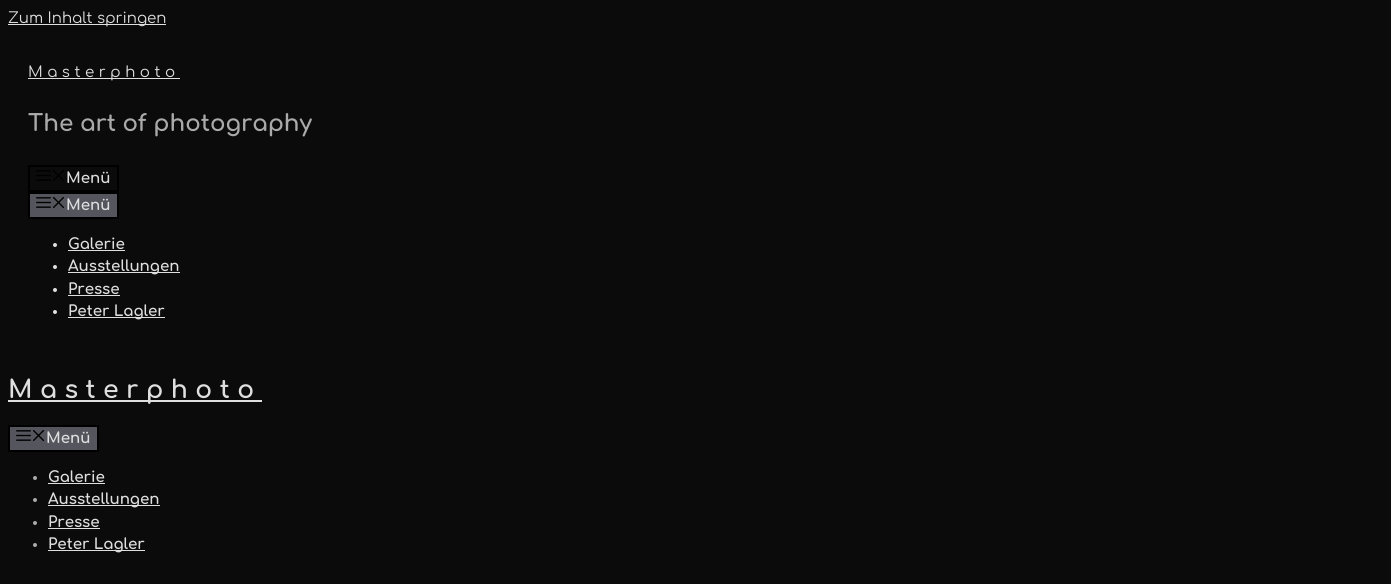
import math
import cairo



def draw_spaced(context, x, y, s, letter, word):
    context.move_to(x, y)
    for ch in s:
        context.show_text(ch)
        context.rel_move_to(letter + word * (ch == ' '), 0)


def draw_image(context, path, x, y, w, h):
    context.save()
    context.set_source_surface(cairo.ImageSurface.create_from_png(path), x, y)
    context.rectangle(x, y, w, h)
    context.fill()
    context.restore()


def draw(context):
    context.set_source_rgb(11 / 255, 11 / 255, 11 / 255)
    context.paint()
    context.set_source_rgb(223 / 255, 223 / 255, 223 / 255)
    context.rectangle(8, 24, 158, 1)
    context.fill()
    context.rectangle(28, 78, 152, 1)
    context.fill()
    context.rectangle(29, 166, 89, 25)
    context.set_source_rgb(0, 0, 0)
    context.stroke()
    draw_image(context, "images/1.png", 36, 170, 15, 11)
    draw_image(context, "images/2.png", 53, 170, 11, 11)
    context.set_source_rgb(85 / 255, 85 / 255, 94 / 255)
    context.rectangle(29, 193, 89, 25)
    context.fill_preserve()
    context.set_source_rgb(0, 0, 0)
    context.stroke()
    draw_image(context, "images/3.png", 36, 197, 15, 11)
    draw_image(context, "images/4.png", 53, 197, 11, 11)
    context.set_source_rgb(223 / 255, 223 / 255, 223 / 255)
    context.arc(55, 245, 2, 0, 2 * math.pi)
    context.fill()
    context.rectangle(68, 250, 57, 1)
    context.fill()
    context.arc(55, 267, 2, 0, 2 * math.pi)
    context.fill()
    context.rectangle(68, 272, 112, 1)
    context.fill()
    context.arc(55, 290, 2, 0, 2 * math.pi)
    context.fill()
    context.rectangle(68, 295, 52, 1)
    context.fill()
    context.arc(55, 312, 2, 0, 2 * math.pi)
    context.fill()
    context.rectangle(68, 317, 97, 1)
    context.fill()
    context.rectangle(8, 400, 254, 2)
    context.fill()
    context.set_source_rgb(85 / 255, 85 / 255, 94 / 255)
    context.rectangle(9, 426, 89, 25)
    context.fill_preserve()
    context.set_source_rgb(0, 0, 0)
    context.stroke()
    draw_image(context, "images/3.png", 16, 430, 15, 11)
    draw_image(context, "images/4.png", 33, 430, 11, 11)
    context.set_source_rgb(170 / 255, 170 / 255, 170 / 255)
    context.arc(35, 478, 2, 0, 2 * math.pi)
    context.fill()
    context.set_source_rgb(223 / 255, 223 / 255, 223 / 255)
    context.rectangle(48, 483, 57, 1)
    context.fill()
    context.set_source_rgb(170 / 255, 170 / 255, 170 / 255)
    context.arc(35, 500, 2, 0, 2 * math.pi)
    context.fill()
    context.set_source_rgb(223 / 255, 223 / 255, 223 / 255)
    context.rectangle(48, 505, 112, 1)
    context.fill()
    context.set_source_rgb(170 / 255, 170 / 255, 170 / 255)
    context.arc(35, 523, 2, 0, 2 * math.pi)
    context.fill()
    context.set_source_rgb(223 / 255, 223 / 255, 223 / 255)
    context.rectangle(48, 528, 52, 1)
    context.fill()
    context.set_source_rgb(170 / 255, 170 / 255, 170 / 255)
    context.arc(35, 545, 2, 0, 2 * math.pi)
    context.fill()
    context.set_source_rgb(223 / 255, 223 / 255, 223 / 255)
    context.rectangle(48, 550, 97, 1)
    context.fill()
    context.select_font_face("Comfortaa")
    context.set_font_size(15)
    context.move_to(8, 23)
    context.show_text("Zum Inhalt springen")
    draw_spaced(context, 28, 77, "Masterphoto", 4.5, 0)
    context.select_font_face("Comfortaa", cairo.FontSlant.NORMAL, cairo.FontWeight.BOLD)
    context.set_font_size(23)
    context.set_source_rgb(170 / 255, 170 / 255, 170 / 255)
    context.move_to(28, 131)
    context.show_text("The art of photography")
    context.set_font_size(15)
    context.set_source_rgb(223 / 255, 223 / 255, 223 / 255)
    context.move_to(66, 183)
    context.show_text("Menü")
    context.move_to(66, 210)
    context.show_text("Menü")
    context.move_to(68, 249)
    context.show_text("Galerie")
    context.move_to(68, 271)
    context.show_text("Ausstellungen")
    context.move_to(68, 294)
    context.show_text("Presse")
    context.move_to(68, 316)
    context.show_text("Peter Lagler")
    context.set_font_size(25)
    draw_spaced(context, 8, 398, "Masterphoto", 7.5, 0)
    context.set_font_size(15)
    context.move_to(46, 443)
    context.show_text("Menü")
    context.move_to(48, 482)
    context.show_text("Galerie")
    context.move_to(48, 504)
    context.show_text("Ausstellungen")
    context.move_to(48, 527)
    context.show_text("Presse")
    context.move_to(48, 549)
    context.show_text("Peter Lagler")


surface = cairo.ImageSurface(cairo.Format.RGB24, 1391, 584)
context = cairo.Context(surface)
options = cairo.FontOptions()
options.set_hint_metrics(cairo.HintMetrics.OFF)
options.set_hint_style(cairo.HintStyle.NONE)
context.set_font_options(options)
context.set_miter_limit(4)
draw(context)
surface.write_to_png("out.png")
